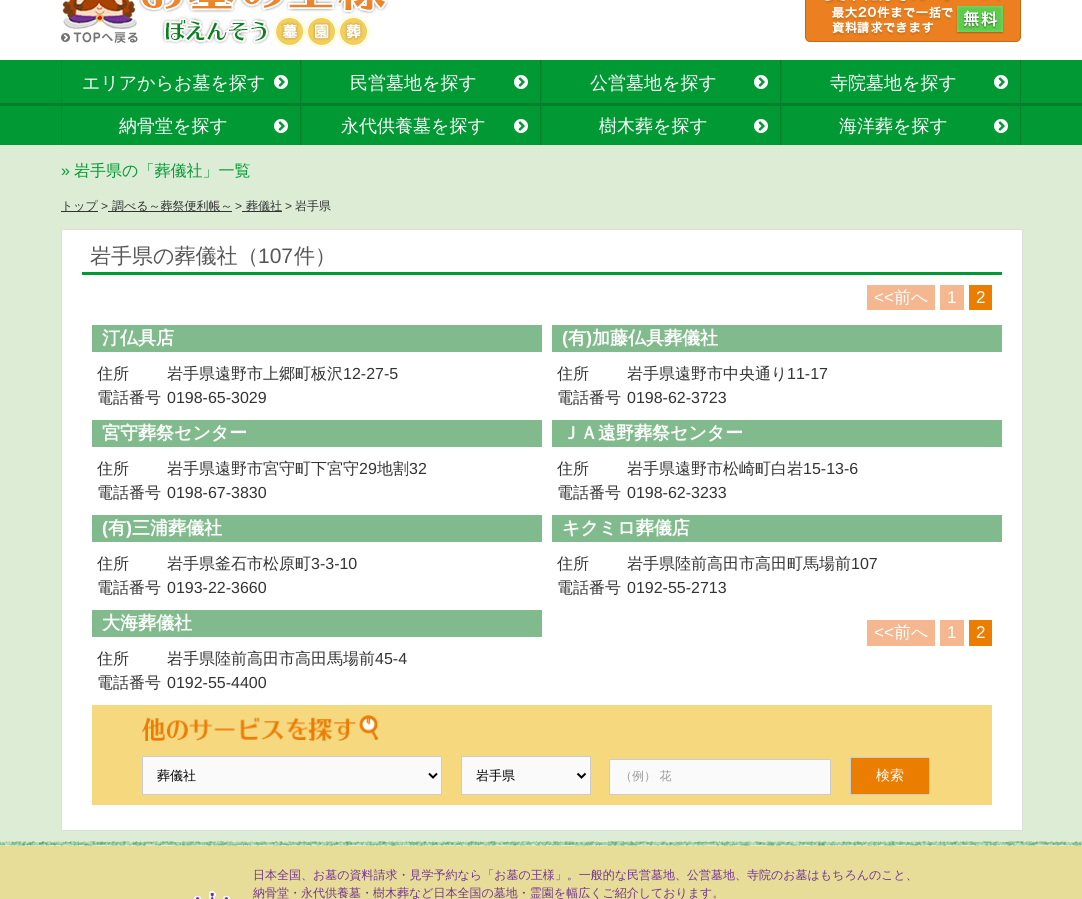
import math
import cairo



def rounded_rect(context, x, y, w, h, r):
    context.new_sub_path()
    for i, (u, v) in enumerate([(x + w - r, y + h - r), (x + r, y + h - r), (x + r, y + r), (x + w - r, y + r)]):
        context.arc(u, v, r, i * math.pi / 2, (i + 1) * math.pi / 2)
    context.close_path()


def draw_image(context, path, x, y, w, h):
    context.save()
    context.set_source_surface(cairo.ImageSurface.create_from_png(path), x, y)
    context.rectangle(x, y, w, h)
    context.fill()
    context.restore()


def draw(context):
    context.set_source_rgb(220 / 255, 236 / 255, 213 / 255)
    context.paint()
    context.set_source_rgb(1, 1, 1)
    context.rectangle(0, 0, 1082, 60)
    context.fill()
    draw_image(context, "images/1.png", 61, 0, 327, 48)
    draw_image(context, "images/2.png", 805, 0, 216, 42)
    context.set_source_rgb(1 / 255, 153 / 255, 52 / 255)
    context.rectangle(0, 60, 1082, 43)
    context.fill()
    context.set_source_rgb(1 / 255, 128 / 255, 44 / 255)
    context.rectangle(0, 103, 1082, 3)
    context.fill()
    draw_image(context, "images/3.png", 274, 75, 14, 14)
    context.set_source_rgb(1 / 255, 128 / 255, 43 / 255)
    context.rectangle(300, 60, 1, 43)
    context.fill()
    context.set_source_rgb(1 / 255, 142 / 255, 48 / 255)
    context.rectangle(61, 60, 1, 43)
    context.fill()
    draw_image(context, "images/3.png", 514, 75, 14, 14)
    context.set_source_rgb(1 / 255, 128 / 255, 43 / 255)
    context.rectangle(540, 60, 1, 43)
    context.fill()
    context.set_source_rgb(1 / 255, 142 / 255, 48 / 255)
    context.rectangle(301, 60, 1, 43)
    context.fill()
    draw_image(context, "images/3.png", 754, 75, 14, 14)
    context.set_source_rgb(1 / 255, 128 / 255, 43 / 255)
    context.rectangle(780, 60, 1, 43)
    context.fill()
    context.set_source_rgb(1 / 255, 142 / 255, 48 / 255)
    context.rectangle(541, 60, 1, 43)
    context.fill()
    draw_image(context, "images/3.png", 994, 75, 14, 14)
    context.set_source_rgb(1 / 255, 128 / 255, 43 / 255)
    context.rectangle(1020, 60, 1, 43)
    context.fill()
    context.set_source_rgb(1 / 255, 142 / 255, 48 / 255)
    context.rectangle(781, 60, 1, 43)
    context.fill()
    context.set_source_rgb(1 / 255, 153 / 255, 52 / 255)
    context.rectangle(0, 106, 1082, 39)
    context.fill()
    draw_image(context, "images/3.png", 274, 119, 14, 14)
    context.set_source_rgb(1 / 255, 128 / 255, 43 / 255)
    context.rectangle(300, 106, 1, 39)
    context.fill()
    context.set_source_rgb(1 / 255, 142 / 255, 48 / 255)
    context.rectangle(61, 106, 1, 39)
    context.fill()
    draw_image(context, "images/3.png", 514, 119, 14, 14)
    context.set_source_rgb(1 / 255, 128 / 255, 43 / 255)
    context.rectangle(540, 106, 1, 39)
    context.fill()
    context.set_source_rgb(1 / 255, 142 / 255, 48 / 255)
    context.rectangle(301, 106, 1, 39)
    context.fill()
    draw_image(context, "images/3.png", 754, 119, 14, 14)
    context.set_source_rgb(1 / 255, 128 / 255, 43 / 255)
    context.rectangle(780, 106, 1, 39)
    context.fill()
    context.set_source_rgb(1 / 255, 142 / 255, 48 / 255)
    context.rectangle(541, 106, 1, 39)
    context.fill()
    draw_image(context, "images/3.png", 994, 119, 14, 14)
    context.set_source_rgb(1 / 255, 128 / 255, 43 / 255)
    context.rectangle(1020, 106, 1, 39)
    context.fill()
    context.set_source_rgb(1 / 255, 142 / 255, 48 / 255)
    context.rectangle(781, 106, 1, 39)
    context.fill()
    context.set_source_rgb(51 / 255, 51 / 255, 51 / 255)
    context.rectangle(61, 211, 37, 1)
    context.fill()
    context.rectangle(108, 211, 124, 1)
    context.fill()
    context.rectangle(242, 211, 40, 1)
    context.fill()
    context.set_source_rgb(1, 1, 1)
    rounded_rect(context, 61.5, 229.5, 961, 601, 0.5)
    context.fill_preserve()
    context.set_source_rgb(221 / 255, 221 / 255, 221 / 255)
    context.set_line_width(1)
    context.stroke()
    context.set_source_rgb(1 / 255, 153 / 255, 52 / 255)
    context.rectangle(82, 272, 920, 3)
    context.fill()
    context.set_source_rgb(244 / 255, 183 / 255, 143 / 255)
    context.rectangle(867, 285, 68, 25)
    context.fill()
    context.rectangle(940, 285, 24, 25)
    context.fill()
    context.set_source_rgb(235 / 255, 125 / 255, 0)
    context.rectangle(969, 285, 23, 25)
    context.fill()
    context.set_source_rgb(129 / 255, 187 / 255, 141 / 255)
    context.rectangle(92, 325, 450, 27)
    context.fill()
    context.rectangle(552, 325, 450, 27)
    context.fill()
    context.rectangle(92, 420, 450, 27)
    context.fill()
    context.rectangle(552, 420, 450, 27)
    context.fill()
    context.rectangle(92, 515, 450, 27)
    context.fill()
    context.rectangle(552, 515, 450, 27)
    context.fill()
    context.rectangle(92, 610, 450, 27)
    context.fill()
    context.set_source_rgb(244 / 255, 183 / 255, 143 / 255)
    context.rectangle(867, 620, 68, 26)
    context.fill()
    context.rectangle(940, 620, 24, 26)
    context.fill()
    context.set_source_rgb(235 / 255, 125 / 255, 0)
    context.rectangle(969, 620, 23, 26)
    context.fill()
    context.set_source_rgb(246 / 255, 217 / 255, 127 / 255)
    context.rectangle(92, 705, 900, 100)
    context.fill()
    draw_image(context, "images/4.png", 142, 715, 237, 26)
    context.set_source_rgb(250 / 255, 250 / 255, 250 / 255)
    context.rectangle(142.5, 756.5, 299, 38)
    context.fill_preserve()
    context.set_source_rgb(204 / 255, 204 / 255, 204 / 255)
    context.stroke()
    context.new_path()
    context.move_to(429, 773.5)
    context.line_to(433, 777.5)
    context.line_to(437, 773.5)
    context.set_source_rgb(0, 0, 0)
    context.set_line_width(2)
    context.stroke()
    context.set_source_rgb(250 / 255, 250 / 255, 250 / 255)
    context.rectangle(461.5, 756.5, 129, 38)
    context.fill_preserve()
    context.set_source_rgb(204 / 255, 204 / 255, 204 / 255)
    context.set_line_width(1)
    context.stroke()
    context.new_path()
    context.move_to(577.5, 773.5)
    context.line_to(581.5, 777.5)
    context.line_to(585.5, 773.5)
    context.set_source_rgb(0, 0, 0)
    context.set_line_width(2)
    context.stroke()
    context.set_source_rgb(250 / 255, 250 / 255, 250 / 255)
    context.rectangle(609.5, 759.5, 221, 35)
    context.fill_preserve()
    context.set_source_rgb(204 / 255, 204 / 255, 204 / 255)
    context.set_line_width(1)
    context.stroke()
    context.set_source_rgb(235 / 255, 125 / 255, 0)
    context.rectangle(850.5, 757.5, 79, 37)
    context.fill_preserve()
    context.set_source_rgb(204 / 255, 204 / 255, 204 / 255)
    context.stroke()
    draw_image(context, "images/5.png", 0, 841, 1082, 5)
    context.set_source_rgb(231 / 255, 221 / 255, 153 / 255)
    context.rectangle(0, 846, 1082, 53)
    context.fill()
    draw_image(context, "images/6.png", 194, 891, 36, 8)
    context.select_font_face("WenQuanYi Zen Hei Medium")
    context.set_font_size(18)
    context.set_source_rgb(1, 1, 1)
    context.move_to(82, 89)
    context.show_text("エリアからお墓を探す")
    context.move_to(350, 89)
    context.show_text("民営墓地を探す")
    context.move_to(590, 89)
    context.show_text("公営墓地を探す")
    context.move_to(830, 89)
    context.show_text("寺院墓地を探す")
    context.move_to(119, 132)
    context.show_text("納骨堂を探す")
    context.move_to(341, 132)
    context.show_text("永代供養墓を探す")
    context.move_to(599, 132)
    context.show_text("樹木葬を探す")
    context.move_to(839, 132)
    context.show_text("海洋葬を探す")
    context.select_font_face("Liberation Sans")
    context.set_font_size(16)
    context.set_source_rgb(1 / 255, 153 / 255, 52 / 255)
    context.move_to(61, 176)
    context.show_text("»")
    context.select_font_face("WenQuanYi Zen Hei Medium")
    context.move_to(74, 176)
    context.show_text("岩手県の「葬儀社」一覧")
    context.set_font_size(12)
    context.set_source_rgb(51 / 255, 51 / 255, 51 / 255)
    context.move_to(61, 210)
    context.show_text("トップ")
    context.select_font_face("Liberation Sans")
    context.move_to(101, 210)
    context.show_text(">")
    context.select_font_face("WenQuanYi Zen Hei Medium")
    context.move_to(112, 210)
    context.show_text("調べる～葬祭便利帳～")
    context.select_font_face("Liberation Sans")
    context.move_to(235, 210)
    context.show_text(">")
    context.select_font_face("WenQuanYi Zen Hei Medium")
    context.move_to(246, 210)
    context.show_text("葬儀社")
    context.select_font_face("Liberation Sans")
    context.move_to(285, 210)
    context.show_text(">")
    context.select_font_face("WenQuanYi Zen Hei Medium")
    context.move_to(295, 210)
    context.show_text("岩手県")
    context.set_font_size(21)
    context.set_source_rgb(86 / 255, 86 / 255, 86 / 255)
    context.move_to(90, 263)
    context.show_text("岩手県の葬儀社（")
    context.select_font_face("Liberation Sans")
    context.move_to(258, 263)
    context.show_text("107")
    context.select_font_face("WenQuanYi Zen Hei Medium")
    context.move_to(294, 263)
    context.show_text("件）")
    context.select_font_face("Liberation Sans")
    context.set_font_size(17)
    context.set_source_rgb(1, 1, 1)
    context.move_to(874, 303)
    context.show_text("<<")
    context.select_font_face("WenQuanYi Zen Hei Medium")
    context.move_to(894, 303)
    context.show_text("前へ")
    context.select_font_face("Liberation Sans")
    context.move_to(947, 303)
    context.show_text("1")
    context.move_to(976, 303)
    context.show_text("2")
    context.select_font_face("WenQuanYi Zen Hei", cairo.FontSlant.NORMAL, cairo.FontWeight.BOLD)
    context.set_font_size(18)
    context.move_to(102, 344)
    context.show_text("汀仏具店")
    context.select_font_face("WenQuanYi Zen Hei Medium")
    context.set_font_size(16)
    context.set_source_rgb(51 / 255, 51 / 255, 51 / 255)
    context.move_to(97, 379)
    context.show_text("住所")
    context.move_to(167, 379)
    context.show_text("岩手県遠野市上郷町板沢")
    context.select_font_face("Liberation Sans")
    context.move_to(343, 379)
    context.show_text("12-27-5")
    context.select_font_face("WenQuanYi Zen Hei Medium")
    context.move_to(97, 403)
    context.show_text("電話番号")
    context.select_font_face("Liberation Sans")
    context.move_to(167, 403)
    context.show_text("0198-65-3029")
    context.select_font_face("Liberation Sans", cairo.FontSlant.NORMAL, cairo.FontWeight.BOLD)
    context.set_font_size(18)
    context.set_source_rgb(1, 1, 1)
    context.move_to(562, 344)
    context.show_text("(")
    context.select_font_face("WenQuanYi Zen Hei", cairo.FontSlant.NORMAL, cairo.FontWeight.BOLD)
    context.move_to(568, 344)
    context.show_text("有")
    context.select_font_face("Liberation Sans", cairo.FontSlant.NORMAL, cairo.FontWeight.BOLD)
    context.move_to(586, 344)
    context.show_text(")")
    context.select_font_face("WenQuanYi Zen Hei", cairo.FontSlant.NORMAL, cairo.FontWeight.BOLD)
    context.move_to(592, 344)
    context.show_text("加藤仏具葬儀社")
    context.select_font_face("WenQuanYi Zen Hei Medium")
    context.set_font_size(16)
    context.set_source_rgb(51 / 255, 51 / 255, 51 / 255)
    context.move_to(557, 379)
    context.show_text("住所")
    context.move_to(627, 379)
    context.show_text("岩手県遠野市中央通り")
    context.select_font_face("Liberation Sans")
    context.move_to(787, 379)
    context.show_text("11-17")
    context.select_font_face("WenQuanYi Zen Hei Medium")
    context.move_to(557, 403)
    context.show_text("電話番号")
    context.select_font_face("Liberation Sans")
    context.move_to(627, 403)
    context.show_text("0198-62-3723")
    context.select_font_face("WenQuanYi Zen Hei", cairo.FontSlant.NORMAL, cairo.FontWeight.BOLD)
    context.set_font_size(18)
    context.set_source_rgb(1, 1, 1)
    context.move_to(102, 439)
    context.show_text("宮守葬祭センター")
    context.select_font_face("WenQuanYi Zen Hei Medium")
    context.set_font_size(16)
    context.set_source_rgb(51 / 255, 51 / 255, 51 / 255)
    context.move_to(97, 474)
    context.show_text("住所")
    context.move_to(167, 474)
    context.show_text("岩手県遠野市宮守町下宮守")
    context.select_font_face("Liberation Sans")
    context.move_to(359, 474)
    context.show_text("29")
    context.select_font_face("WenQuanYi Zen Hei Medium")
    context.move_to(377, 474)
    context.show_text("地割")
    context.select_font_face("Liberation Sans")
    context.move_to(409, 474)
    context.show_text("32")
    context.select_font_face("WenQuanYi Zen Hei Medium")
    context.move_to(97, 498)
    context.show_text("電話番号")
    context.select_font_face("Liberation Sans")
    context.move_to(167, 498)
    context.show_text("0198-67-3830")
    context.select_font_face("WenQuanYi Zen Hei", cairo.FontSlant.NORMAL, cairo.FontWeight.BOLD)
    context.set_font_size(18)
    context.set_source_rgb(1, 1, 1)
    context.move_to(562, 439)
    context.show_text("ＪＡ遠野葬祭センター")
    context.select_font_face("WenQuanYi Zen Hei Medium")
    context.set_font_size(16)
    context.set_source_rgb(51 / 255, 51 / 255, 51 / 255)
    context.move_to(557, 474)
    context.show_text("住所")
    context.move_to(627, 474)
    context.show_text("岩手県遠野市松崎町白岩")
    context.select_font_face("Liberation Sans")
    context.move_to(803, 474)
    context.show_text("15-13-6")
    context.select_font_face("WenQuanYi Zen Hei Medium")
    context.move_to(557, 498)
    context.show_text("電話番号")
    context.select_font_face("Liberation Sans")
    context.move_to(627, 498)
    context.show_text("0198-62-3233")
    context.select_font_face("Liberation Sans", cairo.FontSlant.NORMAL, cairo.FontWeight.BOLD)
    context.set_font_size(18)
    context.set_source_rgb(1, 1, 1)
    context.move_to(102, 534)
    context.show_text("(")
    context.select_font_face("WenQuanYi Zen Hei", cairo.FontSlant.NORMAL, cairo.FontWeight.BOLD)
    context.move_to(108, 534)
    context.show_text("有")
    context.select_font_face("Liberation Sans", cairo.FontSlant.NORMAL, cairo.FontWeight.BOLD)
    context.move_to(126, 534)
    context.show_text(")")
    context.select_font_face("WenQuanYi Zen Hei", cairo.FontSlant.NORMAL, cairo.FontWeight.BOLD)
    context.move_to(132, 534)
    context.show_text("三浦葬儀社")
    context.select_font_face("WenQuanYi Zen Hei Medium")
    context.set_font_size(16)
    context.set_source_rgb(51 / 255, 51 / 255, 51 / 255)
    context.move_to(97, 569)
    context.show_text("住所")
    context.move_to(167, 569)
    context.show_text("岩手県釜石市松原町")
    context.select_font_face("Liberation Sans")
    context.move_to(311, 569)
    context.show_text("3-3-10")
    context.select_font_face("WenQuanYi Zen Hei Medium")
    context.move_to(97, 593)
    context.show_text("電話番号")
    context.select_font_face("Liberation Sans")
    context.move_to(167, 593)
    context.show_text("0193-22-3660")
    context.select_font_face("WenQuanYi Zen Hei", cairo.FontSlant.NORMAL, cairo.FontWeight.BOLD)
    context.set_font_size(18)
    context.set_source_rgb(1, 1, 1)
    context.move_to(562, 534)
    context.show_text("キクミロ葬儀店")
    context.select_font_face("WenQuanYi Zen Hei Medium")
    context.set_font_size(16)
    context.set_source_rgb(51 / 255, 51 / 255, 51 / 255)
    context.move_to(557, 569)
    context.show_text("住所")
    context.move_to(627, 569)
    context.show_text("岩手県陸前高田市高田町馬場前")
    context.select_font_face("Liberation Sans")
    context.move_to(851, 569)
    context.show_text("107")
    context.select_font_face("WenQuanYi Zen Hei Medium")
    context.move_to(557, 593)
    context.show_text("電話番号")
    context.select_font_face("Liberation Sans")
    context.move_to(627, 593)
    context.show_text("0192-55-2713")
    context.select_font_face("WenQuanYi Zen Hei", cairo.FontSlant.NORMAL, cairo.FontWeight.BOLD)
    context.set_font_size(18)
    context.set_source_rgb(1, 1, 1)
    context.move_to(102, 629)
    context.show_text("大海葬儀社")
    context.select_font_face("WenQuanYi Zen Hei Medium")
    context.set_font_size(16)
    context.set_source_rgb(51 / 255, 51 / 255, 51 / 255)
    context.move_to(97, 664)
    context.show_text("住所")
    context.move_to(167, 664)
    context.show_text("岩手県陸前高田市高田馬場前")
    context.select_font_face("Liberation Sans")
    context.move_to(375, 664)
    context.show_text("45-4")
    context.select_font_face("WenQuanYi Zen Hei Medium")
    context.move_to(97, 688)
    context.show_text("電話番号")
    context.select_font_face("Liberation Sans")
    context.move_to(167, 688)
    context.show_text("0192-55-4400")
    context.set_font_size(17)
    context.set_source_rgb(1, 1, 1)
    context.move_to(874, 638)
    context.show_text("<<")
    context.select_font_face("WenQuanYi Zen Hei Medium")
    context.move_to(894, 638)
    context.show_text("前へ")
    context.select_font_face("Liberation Sans")
    context.move_to(947, 638)
    context.show_text("1")
    context.move_to(976, 638)
    context.show_text("2")
    context.select_font_face("WenQuanYi Zen Hei Medium")
    context.set_font_size(13)
    context.set_source_rgb(0, 0, 0)
    context.move_to(157, 780)
    context.show_text("葬儀社")
    context.move_to(476, 780)
    context.show_text("岩手県")
    context.set_font_size(12)
    context.set_source_rgb(153 / 255, 153 / 255, 153 / 255)
    context.move_to(620, 780)
    context.show_text("（例） 花")
    context.set_font_size(14)
    context.set_source_rgb(1, 1, 1)
    context.move_to(876, 780)
    context.show_text("検索")
    context.set_font_size(12)
    context.set_source_rgb(115 / 255, 51 / 255, 147 / 255)
    context.move_to(253, 879)
    context.show_text("日本全国、お墓の資料請求・見学予約なら「お墓の王様」。一般的な民営墓地、公営墓地、寺院のお墓はもちろんのこと、")
    context.move_to(253, 897)
    context.show_text("納骨堂・永代供養墓・樹木葬など日本全国の墓地・霊園を幅広くご紹介しております。")


surface = cairo.ImageSurface(cairo.Format.RGB24, 1082, 899)
context = cairo.Context(surface)
options = cairo.FontOptions()
options.set_hint_metrics(cairo.HintMetrics.OFF)
options.set_hint_style(cairo.HintStyle.NONE)
context.set_font_options(options)
context.set_miter_limit(4)
draw(context)
surface.write_to_png("out.png")
